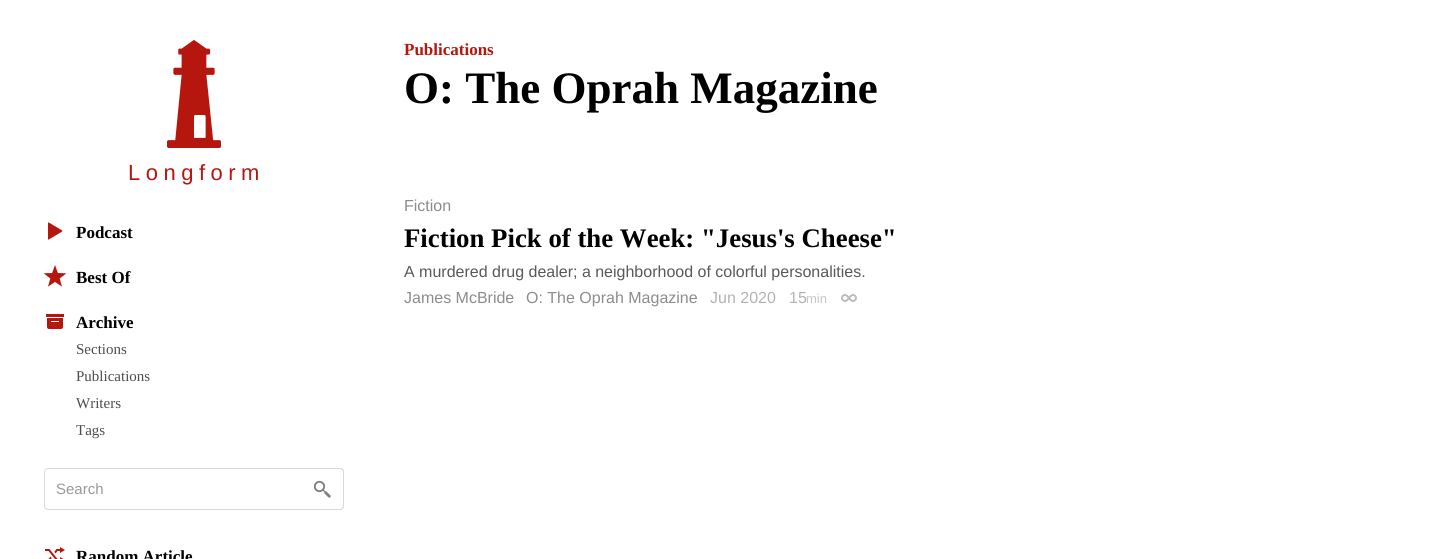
import math
import cairo



def draw_spaced(context, x, y, s, letter, word):
    context.move_to(x, y)
    for ch in s:
        context.show_text(ch)
        context.rel_move_to(letter + word * (ch == ' '), 0)


def rounded_rect(context, x, y, w, h, r):
    context.new_sub_path()
    for i, (u, v) in enumerate([(x + w - r, y + h - r), (x + r, y + h - r), (x + r, y + r), (x + w - r, y + r)]):
        context.arc(u, v, r, i * math.pi / 2, (i + 1) * math.pi / 2)
    context.close_path()


def draw_image(context, path, x, y, w, h):
    context.save()
    context.set_source_surface(cairo.ImageSurface.create_from_png(path), x, y)
    context.rectangle(x, y, w, h)
    context.fill()
    context.restore()


def draw(context):
    context.set_source_rgb(1, 1, 1)
    context.paint()
    draw_image(context, "images/1.png", 167, 40, 54, 108)
    draw_image(context, "images/2.png", 48, 222, 15, 18)
    draw_image(context, "images/3.png", 44, 265, 22, 22)
    draw_image(context, "images/4.png", 46, 314, 18, 15)
    rounded_rect(context, 44.5, 468.5, 299, 41, 3.5)
    context.set_source_rgb(217 / 255, 217 / 255, 217 / 255)
    context.set_line_width(1)
    context.stroke()
    context.set_source_rgb(1, 1, 1)
    context.new_path()
    context.move_to(302, 469)
    context.line_to(340, 469)
    context.curve_to(341.5, 469, 343, 470.5, 343, 472)
    context.line_to(343, 506)
    context.curve_to(343, 507.5, 341.5, 509, 340, 509)
    context.line_to(302, 509)
    context.close_path()
    context.fill()
    draw_image(context, "images/5.png", 313, 480, 18, 18)
    context.set_source_rgb(217 / 255, 217 / 255, 217 / 255)
    context.set_fill_rule(cairo.FillRule.EVEN_ODD)
    context.new_path()
    context.move_to(302, 468)
    context.line_to(340, 468)
    context.curve_to(342, 468, 344, 470, 344, 472)
    context.line_to(344, 506)
    context.curve_to(344, 508, 342, 510, 340, 510)
    context.line_to(302, 510)
    context.close_path()
    context.move_to(302, 469)
    context.line_to(340, 469)
    context.curve_to(342, 469, 343, 470, 343, 472)
    context.line_to(343, 506)
    context.curve_to(343, 508, 342, 509, 340, 509)
    context.line_to(302, 509)
    context.close_path()
    context.fill()
    draw_image(context, "images/6.png", 45, 547, 20, 12)
    draw_image(context, "images/7.png", 841, 294, 16, 8)
    context.select_font_face("Liberation Sans")
    context.set_font_size(22)
    context.set_source_rgb(181 / 255, 23 / 255, 15 / 255)
    draw_spaced(context, 128, 180, "Longfor", 5.5, 0)
    context.move_to(241, 180)
    context.show_text("m")
    context.select_font_face("Liberation Serif", cairo.FontSlant.NORMAL, cairo.FontWeight.BOLD)
    context.set_font_size(17)
    context.set_source_rgb(0, 0, 0)
    context.move_to(76, 238)
    context.show_text("Podcast")
    context.move_to(76, 283)
    context.show_text("Best Of")
    context.move_to(76, 328)
    context.show_text("Archive")
    context.select_font_face("Liberation Serif")
    context.set_font_size(15)
    context.set_source_rgb(77 / 255, 77 / 255, 77 / 255)
    context.move_to(76, 354)
    context.show_text("Sections")
    context.move_to(76, 381)
    context.show_text("Publications")
    context.move_to(76, 408)
    context.show_text("Writers")
    context.move_to(76, 435)
    context.show_text("Tags")
    context.select_font_face("Liberation Sans")
    context.set_source_rgb(153 / 255, 153 / 255, 153 / 255)
    context.move_to(56, 494)
    context.show_text("Search")
    context.select_font_face("Liberation Serif", cairo.FontSlant.NORMAL, cairo.FontWeight.BOLD)
    context.set_font_size(17)
    context.set_source_rgb(0, 0, 0)
    context.move_to(76, 562)
    context.show_text("Random Article")
    context.set_source_rgb(181 / 255, 23 / 255, 15 / 255)
    context.move_to(404, 55)
    context.show_text("Publications")
    context.set_font_size(45)
    context.set_source_rgb(0, 0, 0)
    context.move_to(404, 103)
    context.show_text("O: The Oprah Magazine")
    context.select_font_face("Liberation Sans")
    context.set_font_size(16)
    context.set_source_rgb(140 / 255, 140 / 255, 140 / 255)
    context.move_to(404, 211)
    context.show_text("Fiction")
    context.select_font_face("Liberation Serif", cairo.FontSlant.NORMAL, cairo.FontWeight.BOLD)
    context.set_font_size(26.8)
    context.set_source_rgb(0, 0, 0)
    context.move_to(404, 247)
    context.show_text("Fiction Pick of the Week: \"Jesus's Cheese\"")
    context.select_font_face("Liberation Sans")
    context.set_font_size(16)
    context.set_source_rgb(89 / 255, 89 / 255, 89 / 255)
    context.move_to(404, 277)
    context.show_text("A murdered drug dealer; a neighborhood of colorful personalities.")
    context.set_source_rgb(140 / 255, 140 / 255, 140 / 255)
    context.move_to(404, 303)
    context.show_text("James McBride")
    context.move_to(526, 303)
    context.show_text("O: The Oprah Magazine")
    context.set_source_rgb(179 / 255, 179 / 255, 179 / 255)
    context.move_to(710, 303)
    context.show_text("Jun 2020")
    context.move_to(789, 303)
    context.show_text("15")
    context.set_font_size(13)
    context.set_source_rgb(198 / 255, 198 / 255, 198 / 255)
    context.move_to(806, 303)
    context.show_text("min")


surface = cairo.ImageSurface(cairo.Format.RGB24, 1447, 559)
context = cairo.Context(surface)
options = cairo.FontOptions()
options.set_hint_metrics(cairo.HintMetrics.OFF)
options.set_hint_style(cairo.HintStyle.NONE)
context.set_font_options(options)
context.set_miter_limit(4)
draw(context)
surface.write_to_png("out.png")
